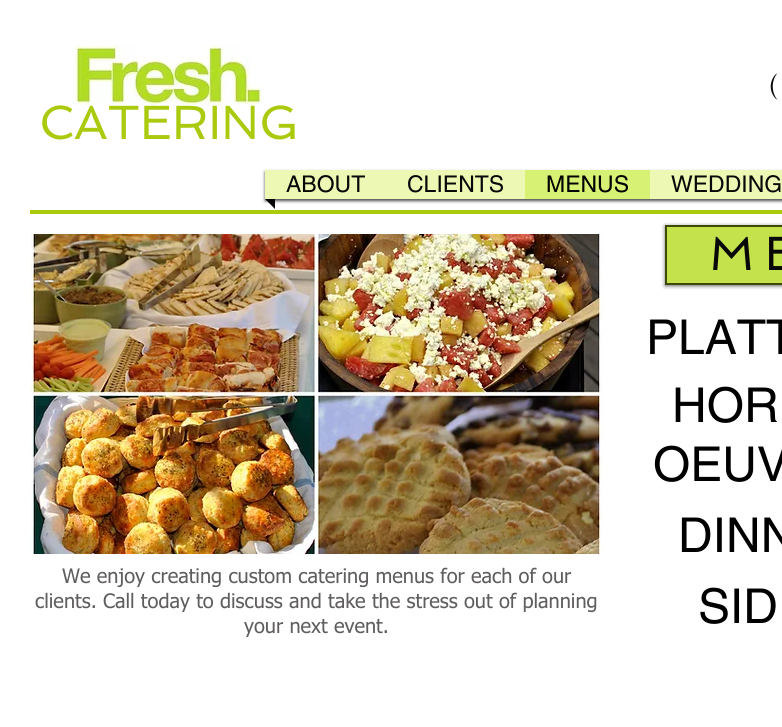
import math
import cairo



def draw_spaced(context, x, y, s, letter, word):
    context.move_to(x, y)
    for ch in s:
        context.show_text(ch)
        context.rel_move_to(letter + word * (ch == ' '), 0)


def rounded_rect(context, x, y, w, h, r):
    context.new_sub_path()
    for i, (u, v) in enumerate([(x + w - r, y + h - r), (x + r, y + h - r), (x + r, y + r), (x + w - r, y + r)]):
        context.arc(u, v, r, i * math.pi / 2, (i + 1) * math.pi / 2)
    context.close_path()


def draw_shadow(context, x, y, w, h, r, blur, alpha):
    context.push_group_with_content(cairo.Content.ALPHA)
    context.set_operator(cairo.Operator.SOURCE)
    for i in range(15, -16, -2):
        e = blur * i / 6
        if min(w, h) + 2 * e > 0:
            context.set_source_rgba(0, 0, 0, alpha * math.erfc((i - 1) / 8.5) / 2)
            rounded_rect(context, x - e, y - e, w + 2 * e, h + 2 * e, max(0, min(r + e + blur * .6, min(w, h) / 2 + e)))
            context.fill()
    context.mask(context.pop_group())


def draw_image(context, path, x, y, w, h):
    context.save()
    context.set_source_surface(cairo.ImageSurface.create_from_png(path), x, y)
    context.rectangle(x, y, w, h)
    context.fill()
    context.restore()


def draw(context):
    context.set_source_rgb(1, 1, 1)
    context.paint()
    draw_image(context, "images/1.png", 74, 45, 189, 61)
    context.set_source_rgb(8 / 255, 8 / 255, 8 / 255)
    context.new_path()
    context.move_to(265, 199)
    context.line_to(275, 199)
    context.line_to(275, 209)
    context.close_path()
    context.fill()
    context.set_source_rgb(0, 0, 0)
    draw_shadow(context, 265, 172, 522, 29, 0, 1.5, 0.7)
    context.set_source_rgb(236 / 255, 248 / 255, 180 / 255)
    context.rectangle(265, 170, 517, 29)
    context.fill()
    context.set_source_rgb(215 / 255, 241 / 255, 117 / 255)
    context.rectangle(525, 170, 125, 29)
    context.fill()
    context.set_source_rgb(170 / 255, 202 / 255, 14 / 255)
    context.rectangle(30, 210, 752, 4)
    context.fill()
    draw_image(context, "images/2.png", 30, 234, 573, 320)
    context.set_source_rgb(0, 0, 0)
    draw_shadow(context, 665, 226, 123, 60, 0, 2, 0.6)
    context.set_source_rgb(195 / 255, 226 / 255, 76 / 255)
    context.rectangle(666, 226, 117, 58)
    context.fill_preserve()
    context.set_source_rgb(60 / 255, 73 / 255, 7 / 255)
    context.stroke()
    context.select_font_face("Aboreto")
    context.set_font_size(30)
    context.set_source_rgb(8 / 255, 8 / 255, 8 / 255)
    context.move_to(768, 97)
    context.show_text("(")
    context.select_font_face("Spinnaker")
    context.set_font_size(48)
    context.set_source_rgb(170 / 255, 202 / 255, 14 / 255)
    context.move_to(39, 139)
    context.show_text("CATERING")
    context.select_font_face("helvetica")
    context.set_font_size(23)
    context.set_source_rgb(8 / 255, 8 / 255, 8 / 255)
    context.move_to(286, 192)
    context.show_text("ABOUT")
    context.move_to(407, 192)
    context.show_text("CLIENTS")
    context.set_source_rgb(0, 0, 0)
    context.move_to(546, 192)
    context.show_text("MENUS")
    context.set_source_rgb(8 / 255, 8 / 255, 8 / 255)
    context.move_to(671, 192)
    context.show_text("WEDDING")
    context.select_font_face("Spinnaker")
    context.set_font_size(48)
    draw_spaced(context, 709, 270, "ME", 10, 0)
    context.select_font_face("tahoma")
    context.set_font_size(20)
    context.set_source_rgb(96 / 255, 93 / 255, 93 / 255)
    context.move_to(62, 583)
    context.show_text("We enjoy creating custom catering menus for each of our")
    context.move_to(35, 608)
    context.show_text("clients. Call today to discuss and take the stress out of planning")
    context.move_to(244, 633)
    context.show_text("your next event.")
    context.select_font_face("helvetica")
    context.set_font_size(48)
    context.set_source_rgb(0, 0, 0)
    context.move_to(646, 354)
    context.show_text("PLATT")
    context.move_to(672, 422)
    context.show_text("HOR")
    context.move_to(653, 481)
    context.show_text("OEUV")
    context.move_to(678, 552)
    context.show_text("DINN")
    context.move_to(698, 623)
    context.show_text("SID")


surface = cairo.ImageSurface(cairo.Format.RGB24, 782, 727)
context = cairo.Context(surface)
options = cairo.FontOptions()
options.set_hint_metrics(cairo.HintMetrics.OFF)
options.set_hint_style(cairo.HintStyle.NONE)
context.set_font_options(options)
context.set_miter_limit(4)
draw(context)
surface.write_to_png("out.png")
